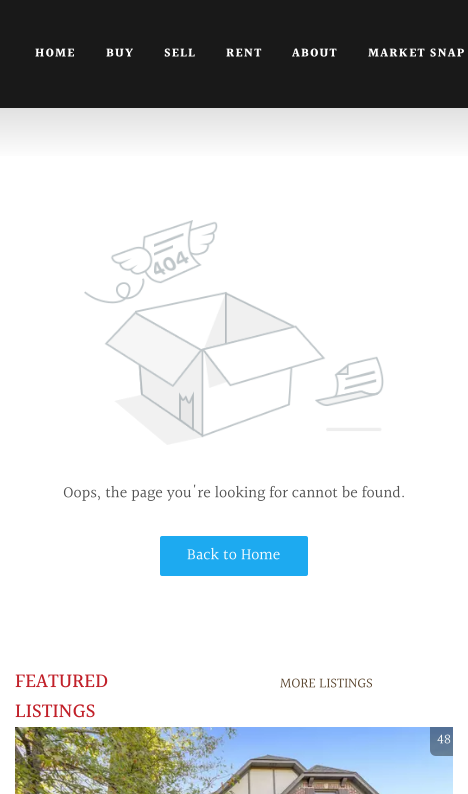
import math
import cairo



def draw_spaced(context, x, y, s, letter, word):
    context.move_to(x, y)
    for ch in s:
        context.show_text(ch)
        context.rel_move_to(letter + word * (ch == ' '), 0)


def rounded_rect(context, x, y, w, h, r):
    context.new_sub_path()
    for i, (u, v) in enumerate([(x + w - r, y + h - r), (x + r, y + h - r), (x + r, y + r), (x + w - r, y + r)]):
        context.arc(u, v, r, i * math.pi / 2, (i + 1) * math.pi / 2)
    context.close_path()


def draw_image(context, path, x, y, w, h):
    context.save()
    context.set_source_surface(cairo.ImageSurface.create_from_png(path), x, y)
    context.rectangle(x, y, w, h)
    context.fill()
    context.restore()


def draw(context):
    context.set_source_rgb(1, 1, 1)
    context.paint()
    gradient = cairo.LinearGradient(234, 0, 234, 160)
    gradient.add_color_stop_rgba(0.01, 163 / 255, 163 / 255, 163 / 255, 1)
    gradient.add_color_stop_rgba(1, 1, 1, 1, 1)
    context.set_source(gradient)
    context.rectangle(0, 108, 468, 48)
    context.fill()
    context.set_source_rgb(25 / 255, 25 / 255, 25 / 255)
    context.rectangle(0, 0, 468, 108)
    context.fill()
    draw_image(context, "images/1.png", 84, 220, 300, 225)
    context.set_source_rgb(29 / 255, 170 / 255, 240 / 255)
    rounded_rect(context, 160, 536, 148, 40, 2)
    context.fill()
    draw_image(context, "images/2.png", 15, 727, 438, 67)
    context.set_source_rgba(0, 0, 0, 0.4)
    context.new_path()
    context.move_to(430, 727)
    context.line_to(453, 727)
    context.line_to(453, 756)
    context.line_to(436, 756)
    context.curve_to(432.5, 756, 430, 753.5, 430, 750)
    context.close_path()
    context.fill()
    context.select_font_face("Halant", cairo.FontSlant.NORMAL, cairo.FontWeight.BOLD)
    context.set_font_size(12)
    context.set_source_rgb(1, 1, 1)
    draw_spaced(context, 35, 57, "HOME", 1.1, 0)
    draw_spaced(context, 106, 57, "BUY", 1.1, 0)
    draw_spaced(context, 164, 57, "SELL", 1.1, 0)
    draw_spaced(context, 226, 57, "RENT", 1.1, 0)
    draw_spaced(context, 292, 57, "ABOUT", 1.1, 0)
    draw_spaced(context, 368, 57, "MARKET SNAP", 1.1, 0)
    context.select_font_face("Halant")
    context.set_font_size(16)
    context.set_source_rgb(80 / 255, 80 / 255, 80 / 255)
    context.move_to(63, 498)
    context.show_text("Oops, the page you're looking for cannot be found.")
    context.set_source_rgb(1, 1, 1)
    context.move_to(187, 560)
    context.show_text("Back to Home")
    context.select_font_face("Halant Medium")
    context.set_font_size(20)
    context.set_source_rgb(193 / 255, 32 / 255, 41 / 255)
    context.move_to(15, 688)
    context.show_text("FEATURED")
    context.move_to(15, 718)
    context.show_text("LISTINGS")
    context.select_font_face("Halant")
    context.set_font_size(14)
    context.set_source_rgb(85 / 255, 63 / 255, 39 / 255)
    context.move_to(280, 688)
    context.show_text("MORE LISTINGS")
    context.set_source_rgb(1, 1, 1)
    context.move_to(437, 744)
    context.show_text("48")


surface = cairo.ImageSurface(cairo.Format.RGB24, 468, 794)
context = cairo.Context(surface)
options = cairo.FontOptions()
options.set_hint_metrics(cairo.HintMetrics.OFF)
options.set_hint_style(cairo.HintStyle.NONE)
context.set_font_options(options)
context.set_miter_limit(4)
draw(context)
surface.write_to_png("out.png")
